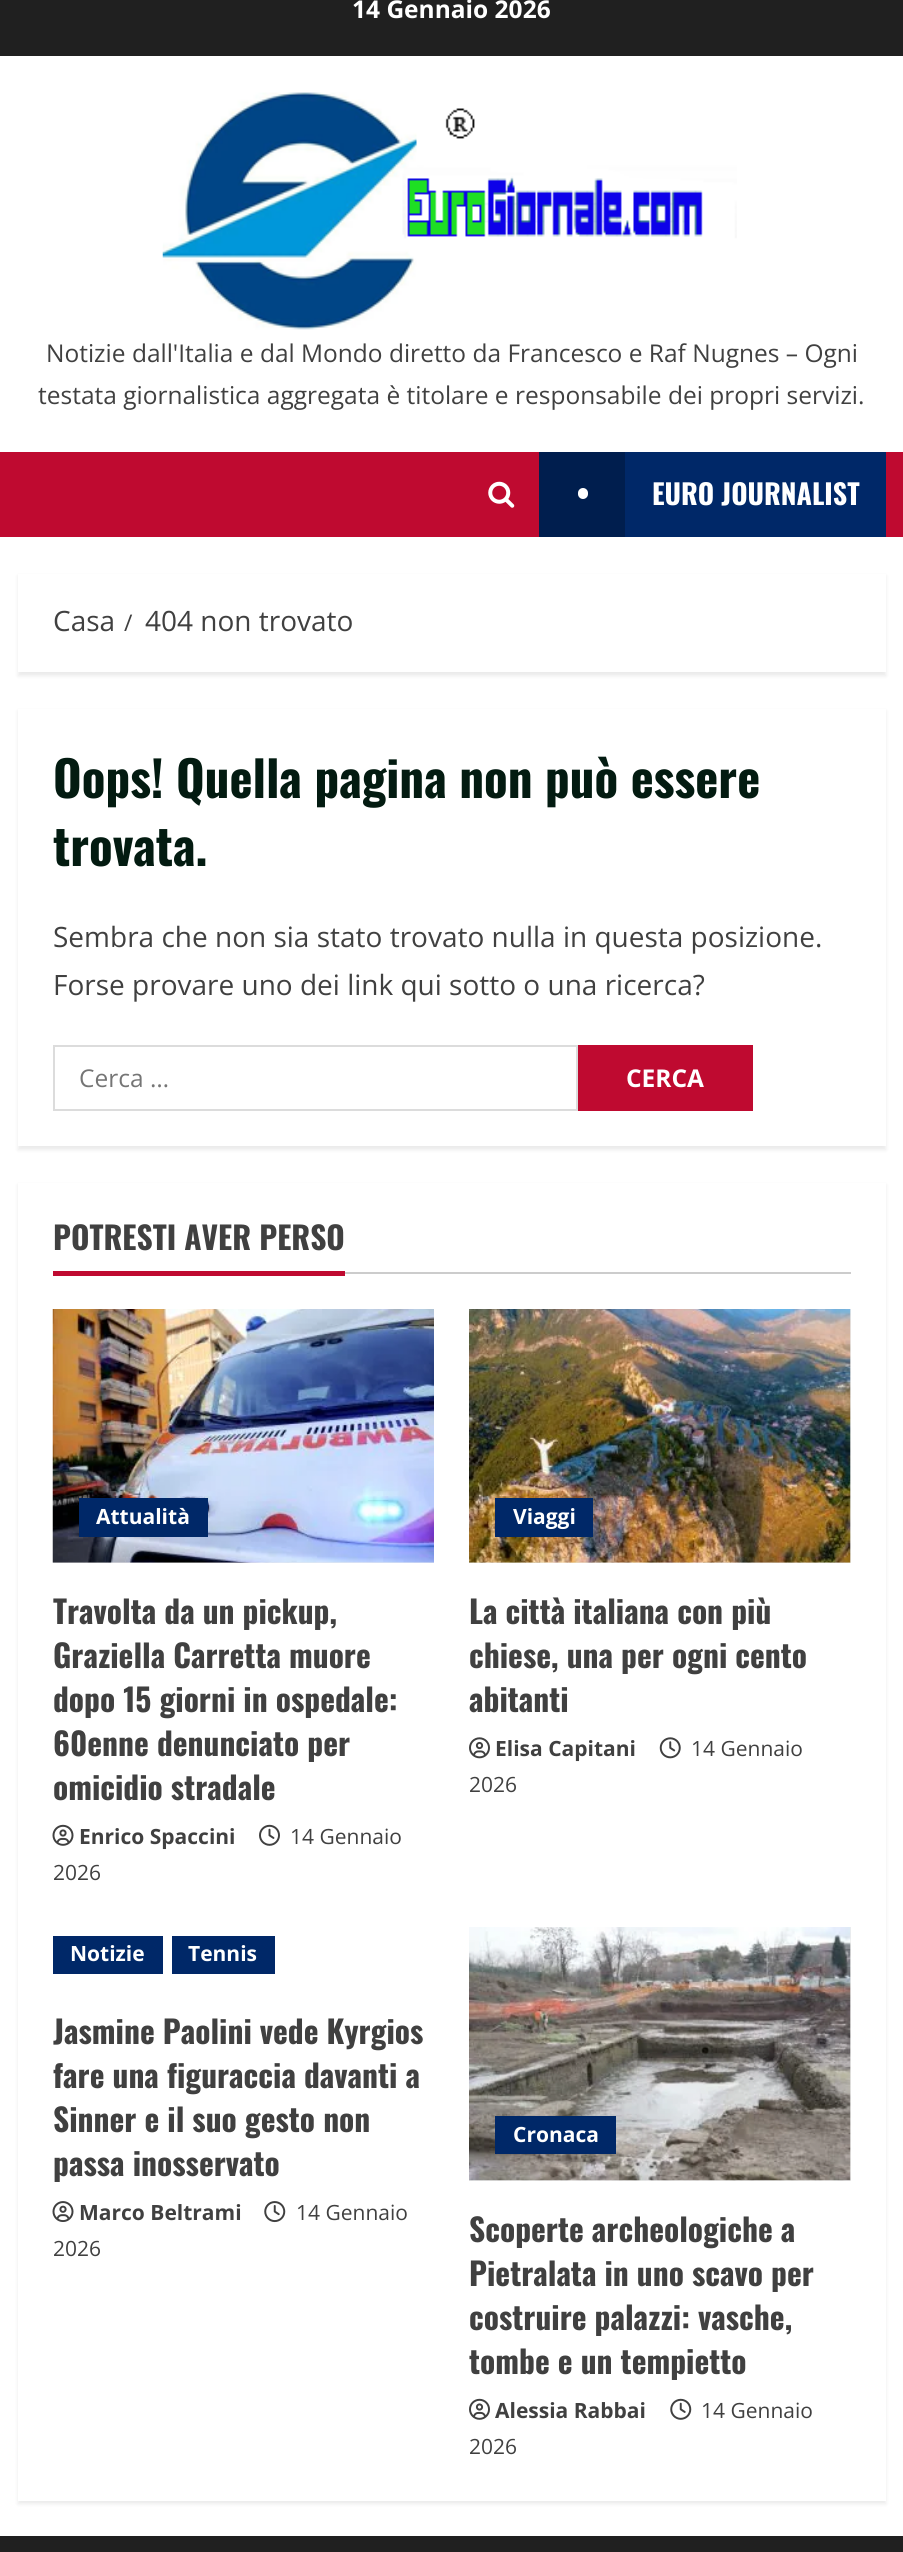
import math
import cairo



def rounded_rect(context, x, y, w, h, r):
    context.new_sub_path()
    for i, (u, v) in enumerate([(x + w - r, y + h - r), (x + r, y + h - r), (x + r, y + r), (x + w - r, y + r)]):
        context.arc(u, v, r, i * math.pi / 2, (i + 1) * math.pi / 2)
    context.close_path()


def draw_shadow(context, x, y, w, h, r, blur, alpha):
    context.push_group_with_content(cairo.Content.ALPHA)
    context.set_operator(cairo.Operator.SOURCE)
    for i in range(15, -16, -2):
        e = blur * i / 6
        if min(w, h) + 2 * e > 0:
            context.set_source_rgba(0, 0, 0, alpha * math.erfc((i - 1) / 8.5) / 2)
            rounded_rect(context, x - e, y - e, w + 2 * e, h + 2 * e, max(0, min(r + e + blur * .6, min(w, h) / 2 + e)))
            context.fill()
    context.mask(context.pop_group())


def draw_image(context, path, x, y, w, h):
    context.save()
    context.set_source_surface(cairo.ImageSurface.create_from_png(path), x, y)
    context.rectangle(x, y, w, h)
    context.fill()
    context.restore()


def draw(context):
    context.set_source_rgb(1, 1, 1)
    context.paint()
    context.set_source_rgb(32 / 255, 32 / 255, 32 / 255)
    context.rectangle(0, 0, 903, 56)
    context.fill()
    draw_image(context, "images/1.png", 162, 92, 575, 238)
    context.set_source_rgb(191 / 255, 10 / 255, 48 / 255)
    context.rectangle(0, 452, 903, 85)
    context.fill()
    draw_image(context, "images/2.png", 488, 481, 27, 27)
    context.set_source_rgb(0, 40 / 255, 104 / 255)
    context.rectangle(625, 452, 261, 85)
    context.fill()
    context.set_source_rgb(0, 30 / 255, 78 / 255)
    context.rectangle(539, 452, 86, 85)
    context.fill()
    context.set_source_rgb(1, 1, 1)
    rounded_rect(context, 578, 488, 10, 11, 5)
    context.fill()
    context.set_source_rgb(0, 0, 0)
    draw_shadow(context, 18, 576, 868, 100, 0, 2, 0.08)
    context.set_source_rgb(1, 1, 1)
    context.rectangle(18, 574, 868, 98)
    context.fill()
    context.set_source_rgb(0, 0, 0)
    draw_shadow(context, 18, 711, 868, 439, 0, 2, 0.08)
    context.set_source_rgb(1, 1, 1)
    context.rectangle(18, 709, 868, 437)
    context.fill()
    context.rectangle(54, 1046, 523, 64)
    context.set_source_rgb(220 / 255, 220 / 255, 220 / 255)
    context.stroke()
    context.set_source_rgb(191 / 255, 10 / 255, 48 / 255)
    context.rectangle(578, 1045, 175, 66)
    context.fill()
    context.set_source_rgb(0, 0, 0)
    draw_shadow(context, 18, 1185, 868, 1319, 0, 2, 0.08)
    context.set_source_rgb(1, 1, 1)
    context.rectangle(18, 1183, 868, 1318)
    context.fill()
    context.set_source_rgb(204 / 255, 204 / 255, 204 / 255)
    context.rectangle(345, 1272, 506, 2)
    context.fill()
    context.set_source_rgb(191 / 255, 10 / 255, 48 / 255)
    context.rectangle(53, 1271, 292, 5)
    context.fill()
    context.set_source_rgb(236 / 255, 236 / 255, 236 / 255)
    context.rectangle(53, 1562, 381, 1)
    context.fill()
    draw_image(context, "images/3.png", 52, 1309, 382, 254)
    context.set_source_rgb(0, 40 / 255, 104 / 255)
    context.rectangle(79, 1498, 129, 39)
    context.fill()
    draw_image(context, "images/4.png", 52, 1824, 22, 22)
    draw_image(context, "images/5.png", 259, 1824, 21, 22)
    context.set_source_rgb(236 / 255, 236 / 255, 236 / 255)
    context.rectangle(469, 1309, 382, 254)
    context.fill()
    draw_image(context, "images/6.png", 469, 1309, 382, 254)
    context.set_source_rgb(0, 40 / 255, 104 / 255)
    context.rectangle(495, 1498, 98, 39)
    context.fill()
    draw_image(context, "images/7.png", 469, 1737, 21, 22)
    draw_image(context, "images/8.png", 659, 1737, 22, 22)
    context.rectangle(53, 1936, 110, 38)
    context.fill()
    context.rectangle(172, 1936, 103, 38)
    context.fill()
    draw_image(context, "images/9.png", 52, 2201, 22, 21)
    draw_image(context, "images/10.png", 264, 2201, 22, 22)
    context.set_source_rgb(236 / 255, 236 / 255, 236 / 255)
    context.rectangle(469, 1927, 382, 254)
    context.fill()
    draw_image(context, "images/11.png", 469, 1927, 382, 254)
    context.set_source_rgb(0, 40 / 255, 104 / 255)
    context.rectangle(495, 2116, 121, 38)
    context.fill()
    draw_image(context, "images/12.png", 469, 2398, 21, 22)
    draw_image(context, "images/13.png", 670, 2398, 22, 22)
    context.set_source_rgb(32 / 255, 32 / 255, 32 / 255)
    context.rectangle(0, 2536, 903, 16)
    context.fill()
    context.select_font_face("Open Sans", cairo.FontSlant.NORMAL, cairo.FontWeight.BOLD)
    context.set_font_size(24.5)
    context.set_source_rgb(1, 1, 1)
    context.move_to(352, 18)
    context.show_text("14 Gennaio 2026")
    context.select_font_face("Open Sans")
    context.set_source_rgb(64 / 255, 64 / 255, 64 / 255)
    context.move_to(46, 362)
    context.show_text("Notizie dall'Italia e dal Mondo diretto da Francesco e Raf Nugnes – Ogni")
    context.move_to(38, 404)
    context.show_text("testata giornalistica aggregata è titolare e responsabile dei propri servizi.")
    context.select_font_face("Oswald", cairo.FontSlant.NORMAL, cairo.FontWeight.BOLD)
    context.set_font_size(28)
    context.set_source_rgb(1, 1, 1)
    context.move_to(652, 505)
    context.show_text("EURO JOURNALIST")
    context.select_font_face("Open Sans")
    context.set_source_rgb(64 / 255, 64 / 255, 64 / 255)
    context.move_to(53, 631)
    context.show_text("Casa")
    context.set_font_size(23)
    context.move_to(124, 631)
    context.show_text("/")
    context.set_font_size(28)
    context.move_to(145, 631)
    context.show_text("404 non trovato")
    context.select_font_face("Oswald", cairo.FontSlant.NORMAL, cairo.FontWeight.BOLD)
    context.set_font_size(49)
    context.set_source_rgb(3 / 255, 27 / 255, 17 / 255)
    context.move_to(53, 798)
    context.show_text("Oops! Quella pagina non può essere")
    context.move_to(53, 866)
    context.show_text("trovata.")
    context.select_font_face("Open Sans")
    context.set_font_size(28)
    context.set_source_rgb(64 / 255, 64 / 255, 64 / 255)
    context.move_to(53, 947)
    context.show_text("Sembra che non sia stato trovato nulla in questa posizione.")
    context.move_to(53, 995)
    context.show_text("Forse provare uno dei link qui sotto o una ricerca?")
    context.set_font_size(24.5)
    context.set_source_rgb(117 / 255, 117 / 255, 117 / 255)
    context.move_to(79, 1087)
    context.show_text("Cerca …")
    context.select_font_face("Open Sans", cairo.FontSlant.NORMAL, cairo.FontWeight.BOLD)
    context.set_source_rgb(1, 1, 1)
    context.move_to(626, 1087)
    context.show_text("CERCA")
    context.select_font_face("Oswald", cairo.FontSlant.NORMAL, cairo.FontWeight.BOLD)
    context.set_font_size(31.5)
    context.set_source_rgb(64 / 255, 64 / 255, 64 / 255)
    context.move_to(53, 1250)
    context.show_text("POTRESTI AVER PERSO")
    context.select_font_face("Open Sans", cairo.FontSlant.NORMAL, cairo.FontWeight.BOLD)
    context.set_font_size(21)
    context.set_source_rgb(1, 1, 1)
    context.move_to(96, 1524)
    context.show_text("Attualità")
    context.select_font_face("Oswald", cairo.FontSlant.NORMAL, cairo.FontWeight.BOLD)
    context.set_font_size(31.5)
    context.set_source_rgb(64 / 255, 64 / 255, 64 / 255)
    context.move_to(53, 1624)
    context.show_text("Travolta da un pickup,")
    context.move_to(53, 1668)
    context.show_text("Graziella Carretta muore")
    context.move_to(53, 1712)
    context.show_text("dopo 15 giorni in ospedale:")
    context.move_to(53, 1756)
    context.show_text("60enne denunciato per")
    context.move_to(53, 1800)
    context.show_text("omicidio stradale")
    context.select_font_face("Open Sans", cairo.FontSlant.NORMAL, cairo.FontWeight.BOLD)
    context.set_font_size(21)
    context.move_to(79, 1844)
    context.show_text("Enrico Spaccini")
    context.select_font_face("Open Sans")
    context.move_to(290, 1844)
    context.show_text("14 Gennaio")
    context.move_to(53, 1880)
    context.show_text("2026")
    context.select_font_face("Open Sans", cairo.FontSlant.NORMAL, cairo.FontWeight.BOLD)
    context.set_source_rgb(1, 1, 1)
    context.move_to(513, 1524)
    context.show_text("Viaggi")
    context.select_font_face("Oswald", cairo.FontSlant.NORMAL, cairo.FontWeight.BOLD)
    context.set_font_size(31.5)
    context.set_source_rgb(64 / 255, 64 / 255, 64 / 255)
    context.move_to(469, 1624)
    context.show_text("La città italiana con più")
    context.move_to(469, 1668)
    context.show_text("chiese, una per ogni cento")
    context.move_to(469, 1712)
    context.show_text("abitanti")
    context.select_font_face("Open Sans", cairo.FontSlant.NORMAL, cairo.FontWeight.BOLD)
    context.set_font_size(21)
    context.move_to(495, 1756)
    context.show_text("Elisa Capitani")
    context.select_font_face("Open Sans")
    context.move_to(691, 1756)
    context.show_text("14 Gennaio")
    context.move_to(469, 1792)
    context.show_text("2026")
    context.select_font_face("Open Sans", cairo.FontSlant.NORMAL, cairo.FontWeight.BOLD)
    context.set_source_rgb(1, 1, 1)
    context.move_to(70, 1961)
    context.show_text("Notizie")
    context.move_to(188, 1961)
    context.show_text("Tennis")
    context.select_font_face("Oswald", cairo.FontSlant.NORMAL, cairo.FontWeight.BOLD)
    context.set_font_size(31.5)
    context.set_source_rgb(64 / 255, 64 / 255, 64 / 255)
    context.move_to(53, 2044)
    context.show_text("Jasmine Paolini vede Kyrgios")
    context.move_to(53, 2088)
    context.show_text("fare una figuraccia davanti a")
    context.move_to(53, 2132)
    context.show_text("Sinner e il suo gesto non")
    context.move_to(53, 2176)
    context.show_text("passa inosservato")
    context.select_font_face("Open Sans", cairo.FontSlant.NORMAL, cairo.FontWeight.BOLD)
    context.set_font_size(21)
    context.move_to(79, 2220)
    context.show_text("Marco Beltrami")
    context.select_font_face("Open Sans")
    context.move_to(296, 2220)
    context.show_text("14 Gennaio")
    context.move_to(53, 2256)
    context.show_text("2026")
    context.select_font_face("Open Sans", cairo.FontSlant.NORMAL, cairo.FontWeight.BOLD)
    context.set_source_rgb(1, 1, 1)
    context.move_to(513, 2142)
    context.show_text("Cronaca")
    context.select_font_face("Oswald", cairo.FontSlant.NORMAL, cairo.FontWeight.BOLD)
    context.set_font_size(31.5)
    context.set_source_rgb(64 / 255, 64 / 255, 64 / 255)
    context.move_to(469, 2242)
    context.show_text("Scoperte archeologiche a")
    context.move_to(469, 2286)
    context.show_text("Pietralata in uno scavo per")
    context.move_to(469, 2330)
    context.show_text("costruire palazzi: vasche,")
    context.move_to(469, 2374)
    context.show_text("tombe e un tempietto")
    context.select_font_face("Open Sans", cairo.FontSlant.NORMAL, cairo.FontWeight.BOLD)
    context.set_font_size(21)
    context.move_to(495, 2418)
    context.show_text("Alessia Rabbai")
    context.select_font_face("Open Sans")
    context.move_to(701, 2418)
    context.show_text("14 Gennaio")
    context.move_to(469, 2454)
    context.show_text("2026")


surface = cairo.ImageSurface(cairo.Format.RGB24, 903, 2552)
context = cairo.Context(surface)
options = cairo.FontOptions()
options.set_hint_metrics(cairo.HintMetrics.OFF)
options.set_hint_style(cairo.HintStyle.NONE)
context.set_font_options(options)
context.set_miter_limit(4)
draw(context)
surface.write_to_png("out.png")
